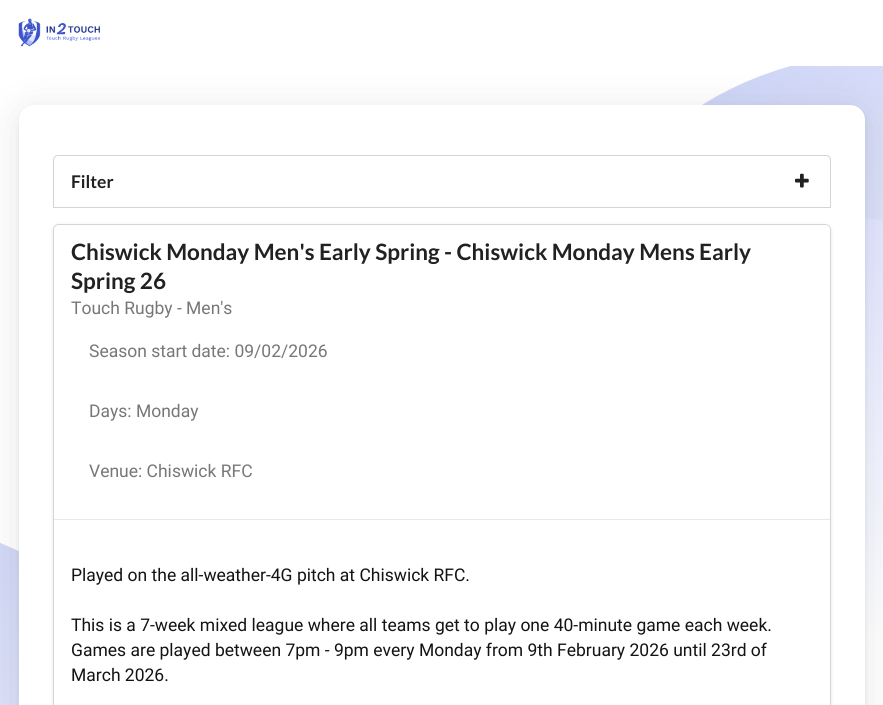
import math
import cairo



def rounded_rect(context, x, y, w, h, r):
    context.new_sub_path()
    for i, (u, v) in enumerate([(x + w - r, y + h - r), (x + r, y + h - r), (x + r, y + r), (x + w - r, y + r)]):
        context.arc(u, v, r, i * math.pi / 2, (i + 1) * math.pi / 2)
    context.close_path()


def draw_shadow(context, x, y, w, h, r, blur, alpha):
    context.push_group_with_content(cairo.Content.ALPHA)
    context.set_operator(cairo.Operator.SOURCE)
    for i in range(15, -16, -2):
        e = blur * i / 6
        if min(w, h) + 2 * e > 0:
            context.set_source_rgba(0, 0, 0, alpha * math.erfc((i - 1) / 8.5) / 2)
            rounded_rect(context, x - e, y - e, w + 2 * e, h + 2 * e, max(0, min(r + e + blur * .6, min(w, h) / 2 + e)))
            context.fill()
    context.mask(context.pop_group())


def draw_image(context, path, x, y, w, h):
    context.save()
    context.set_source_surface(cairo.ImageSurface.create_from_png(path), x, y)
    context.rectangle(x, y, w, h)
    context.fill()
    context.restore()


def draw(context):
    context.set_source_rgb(1, 1, 1)
    context.paint()
    draw_image(context, "images/1.png", 0, 66, 883, 639)
    draw_image(context, "images/2.png", 18, 18, 82, 29)
    context.set_source_rgb(0, 0, 0)
    draw_shadow(context, 19, 110, 846, 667, 15, 19, 0.1)
    draw_shadow(context, 19, 108, 846, 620, 15, 2.5, 0.06)
    context.set_source_rgb(1, 1, 1)
    rounded_rect(context, 19, 105, 846, 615, 15)
    context.fill()
    context.new_path()
    context.move_to(58, 155.5)
    context.line_to(826, 155.5)
    context.curve_to(828.5, 155.5, 830.5, 157.5, 830.5, 160)
    context.line_to(830.5, 207.5)
    context.line_to(53.5, 207.5)
    context.line_to(53.5, 160)
    context.curve_to(53.5, 157.5, 55.5, 155.5, 58, 155.5)
    context.close_path()
    context.set_source_rgb(212 / 255, 212 / 255, 213 / 255)
    context.set_line_width(1)
    context.stroke()
    draw_image(context, "images/3.png", 795, 173, 14, 15)
    rounded_rect(context, 53.5, 224.5, 777, 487, 5.5)
    context.stroke()
    context.set_source_rgb(212 / 255, 212 / 255, 213 / 255)
    draw_shadow(context, 54, 226, 776, 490, 5, 2, 1)
    context.set_source_rgb(1, 1, 1)
    rounded_rect(context, 54, 225, 776, 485, 5)
    context.fill()
    context.set_source_rgb(233 / 255, 233 / 255, 233 / 255)
    context.rectangle(54, 519, 776, 1)
    context.fill()
    context.select_font_face("Lato", cairo.FontSlant.NORMAL, cairo.FontWeight.BOLD)
    context.set_font_size(17.5)
    context.set_source_rgb(33 / 255, 33 / 255, 33 / 255)
    context.move_to(71, 188)
    context.show_text("Filter")
    context.set_font_size(22.5)
    context.move_to(71, 260)
    context.show_text("Chiswick Monday Men's Early Spring - Chiswick Monday Mens Early")
    context.move_to(71, 289)
    context.show_text("Spring 26")
    context.select_font_face("Roboto")
    context.set_font_size(17.5)
    context.set_source_rgb(119 / 255, 119 / 255, 119 / 255)
    context.move_to(71, 314)
    context.show_text("Touch Rugby - Men's")
    context.move_to(89, 357)
    context.show_text("Season start date: 09/02/2026")
    context.move_to(89, 417)
    context.show_text("Days: Monday")
    context.move_to(89, 477)
    context.show_text("Venue: Chiswick RFC")
    context.set_source_rgb(19 / 255, 19 / 255, 19 / 255)
    context.move_to(71, 581)
    context.show_text("Played on the all-weather-4G pitch at Chiswick RFC.")
    context.move_to(71, 631)
    context.show_text("This is a 7-week mixed league where all teams get to play one 40-minute game each week.")
    context.move_to(71, 656)
    context.show_text("Games are played between 7pm - 9pm every Monday from 9th February 2026 until 23rd of")
    context.move_to(71, 681)
    context.show_text("March 2026.")


surface = cairo.ImageSurface(cairo.Format.RGB24, 883, 705)
context = cairo.Context(surface)
options = cairo.FontOptions()
options.set_hint_metrics(cairo.HintMetrics.OFF)
options.set_hint_style(cairo.HintStyle.NONE)
context.set_font_options(options)
context.set_miter_limit(4)
draw(context)
surface.write_to_png("out.png")
